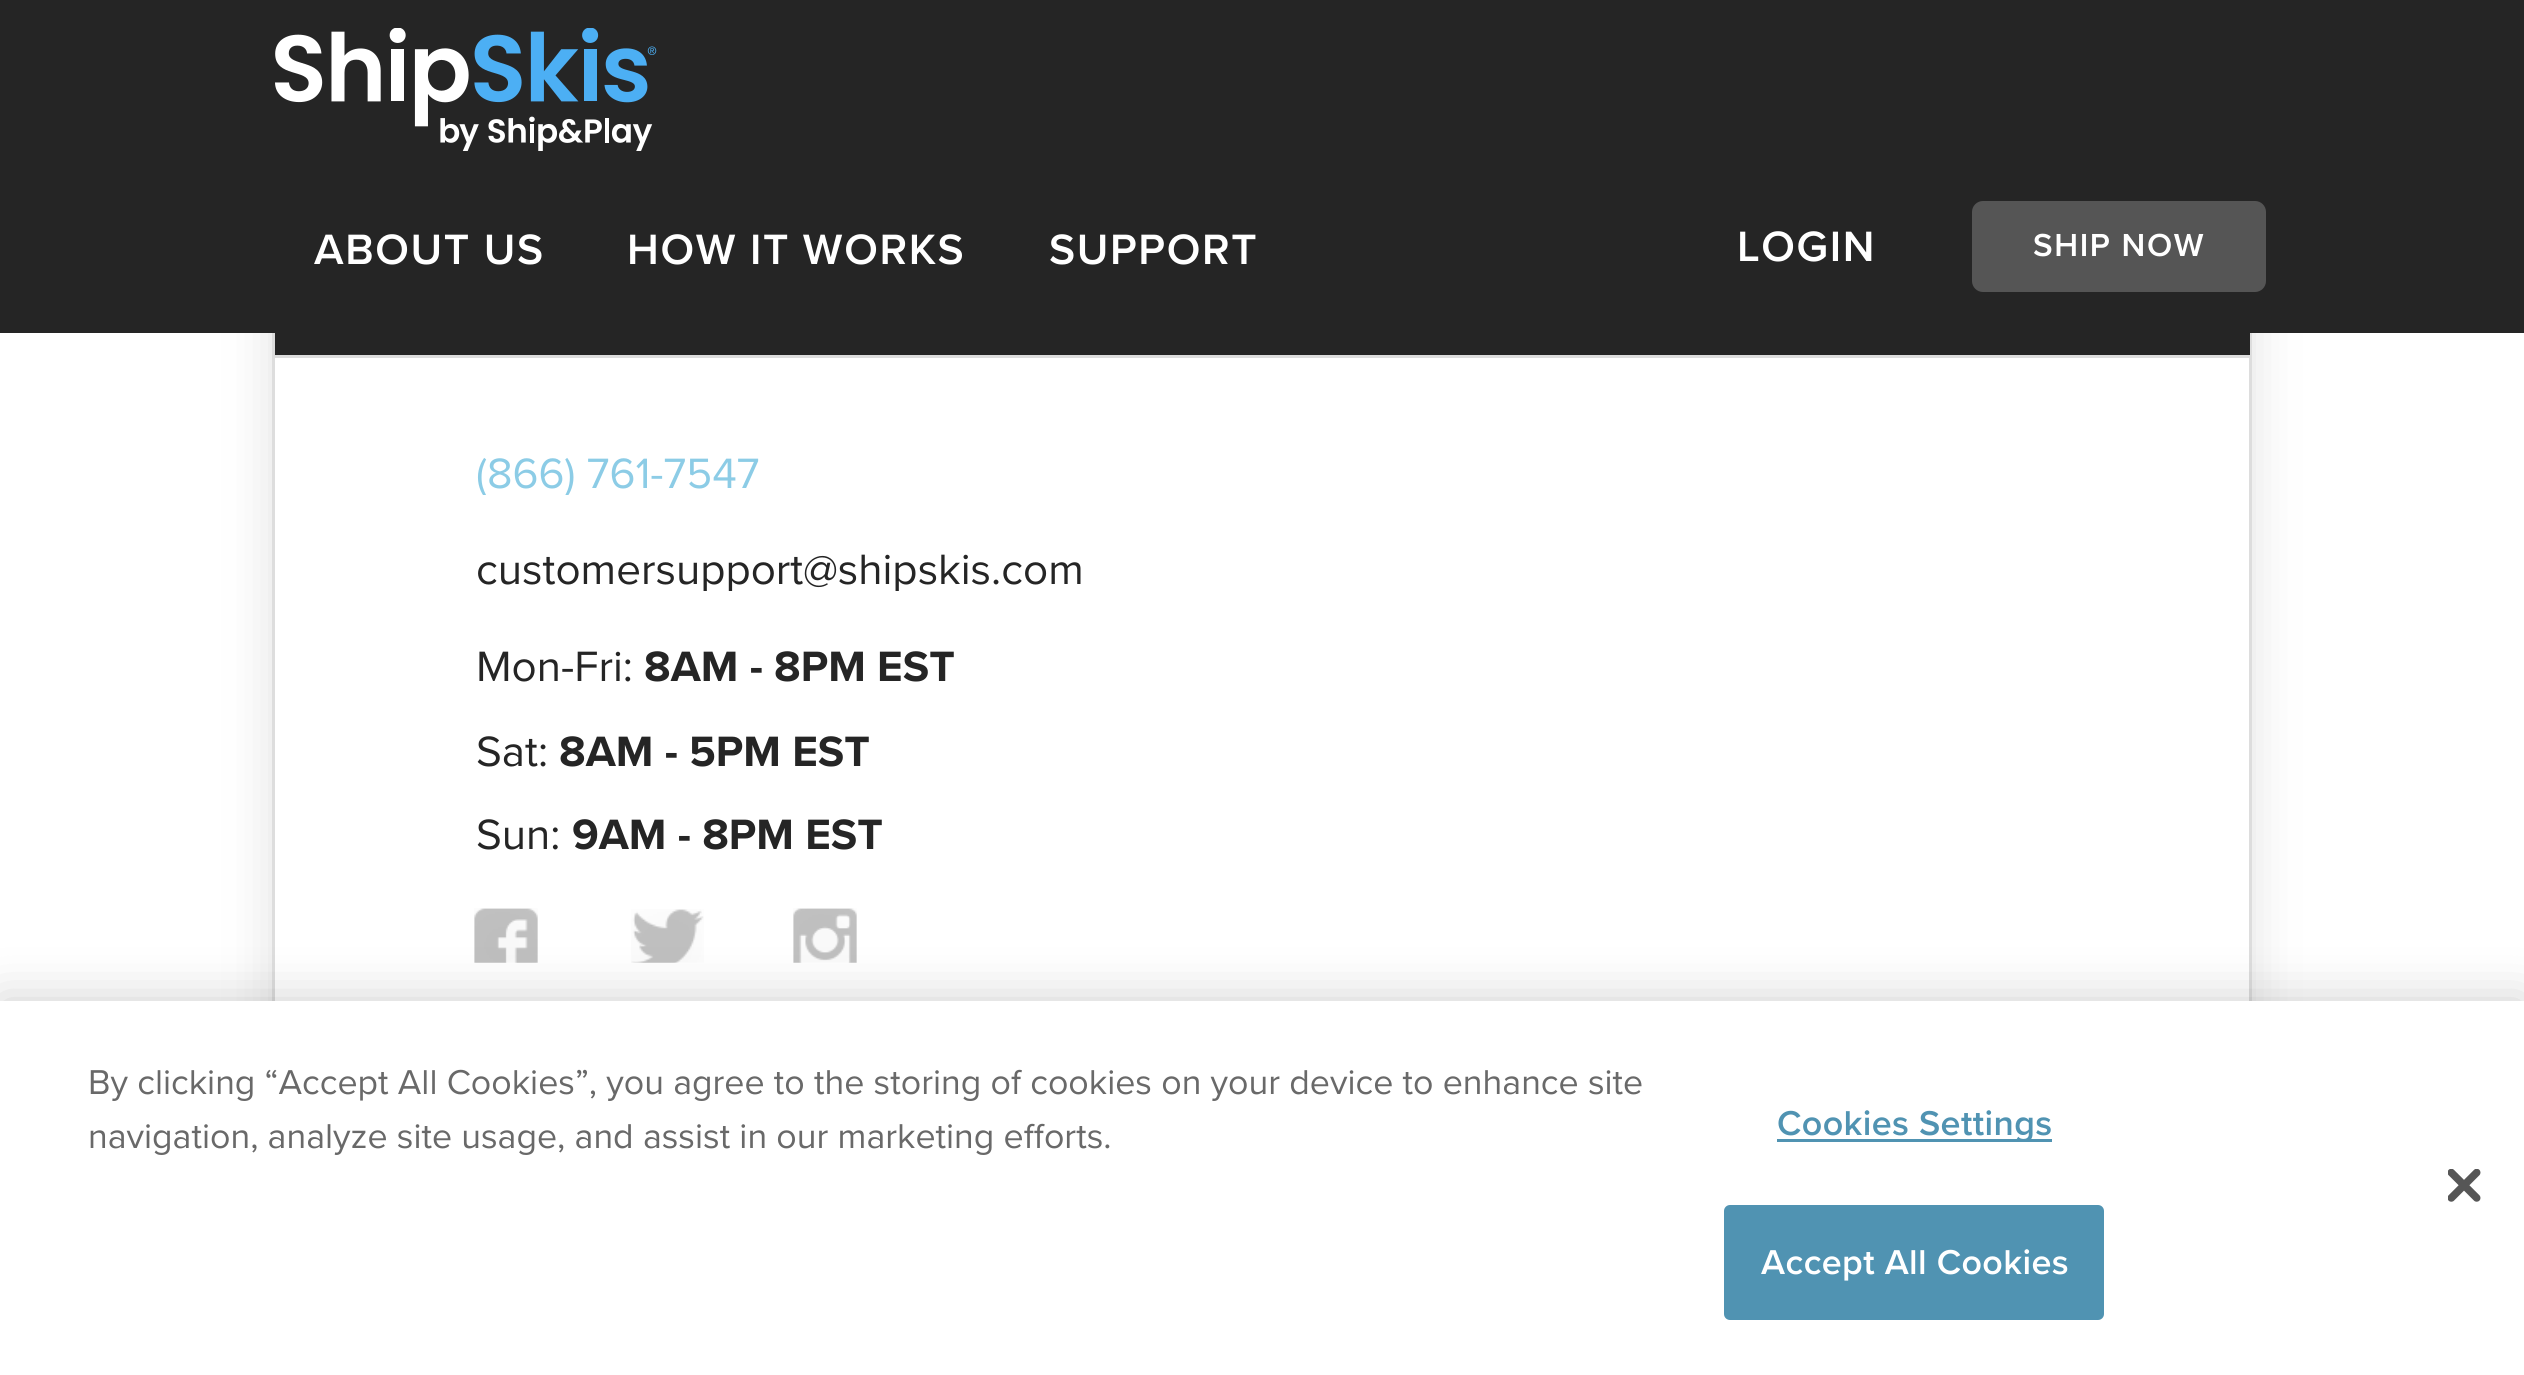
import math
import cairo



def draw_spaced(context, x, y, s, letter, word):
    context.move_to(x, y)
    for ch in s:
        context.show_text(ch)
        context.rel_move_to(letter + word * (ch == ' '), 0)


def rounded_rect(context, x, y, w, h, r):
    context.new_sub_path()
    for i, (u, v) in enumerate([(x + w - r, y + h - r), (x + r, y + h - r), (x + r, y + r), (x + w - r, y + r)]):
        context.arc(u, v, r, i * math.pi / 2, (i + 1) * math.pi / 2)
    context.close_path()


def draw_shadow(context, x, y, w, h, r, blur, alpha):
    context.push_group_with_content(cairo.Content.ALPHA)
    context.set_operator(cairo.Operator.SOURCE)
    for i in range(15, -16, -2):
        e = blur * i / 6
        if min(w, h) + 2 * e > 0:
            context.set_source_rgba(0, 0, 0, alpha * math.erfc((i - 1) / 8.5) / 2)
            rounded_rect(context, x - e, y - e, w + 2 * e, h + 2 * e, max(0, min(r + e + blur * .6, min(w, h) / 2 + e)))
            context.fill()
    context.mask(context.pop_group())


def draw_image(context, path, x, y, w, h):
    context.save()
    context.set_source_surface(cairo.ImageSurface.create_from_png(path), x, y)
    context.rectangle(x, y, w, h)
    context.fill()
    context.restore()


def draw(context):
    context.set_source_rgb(1, 1, 1)
    context.paint()
    context.set_source_rgb(225 / 255, 225 / 255, 225 / 255)
    draw_shadow(context, 272, 217, 1980, 1142, 0, 23.5, 1)
    context.set_source_rgb(1, 1, 1)
    context.rectangle(275, 358, 1974, 643)
    context.fill()
    context.rectangle(273.5, 213.5, 1977, 1138)
    context.set_source_rgb(221 / 255, 221 / 255, 221 / 255)
    context.set_line_width(3)
    context.stroke()
    context.set_source_rgb(37 / 255, 37 / 255, 37 / 255)
    context.rectangle(0, 0, 2524, 333)
    context.fill()
    draw_image(context, "images/1.png", 275, 28, 382, 123)
    context.set_source_rgb(85 / 255, 85 / 255, 85 / 255)
    rounded_rect(context, 1972, 201, 294, 91, 11)
    context.fill()
    context.set_source_rgb(37 / 255, 37 / 255, 37 / 255)
    context.rectangle(275, 333, 1975, 22)
    context.fill()
    context.set_source_rgb(221 / 255, 221 / 255, 221 / 255)
    context.rectangle(275, 355, 1975, 3)
    context.fill()
    draw_image(context, "images/2.png", 474, 908, 64, 55)
    draw_image(context, "images/3.png", 631, 909, 73, 54)
    draw_image(context, "images/4.png", 793, 908, 64, 55)
    context.set_source_rgb(0, 0, 0)
    draw_shadow(context, 0, 1001, 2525, 374, 0, 25, 0.2)
    context.set_source_rgb(1, 1, 1)
    context.rectangle(0, 1001, 2524, 374)
    context.fill()
    context.set_source_rgb(80 / 255, 147 / 255, 178 / 255)
    context.rectangle(1777, 1139, 275, 3)
    context.fill()
    rounded_rect(context, 1725.5, 1206.5, 377, 112, 4.5)
    context.fill_preserve()
    context.stroke()
    draw_image(context, "images/5.png", 2448, 1169, 33, 33)
    context.select_font_face("Proxima Nova SemiBold")
    context.set_font_size(44)
    context.set_source_rgb(1, 1, 1)
    draw_spaced(context, 314, 264, "ABOUT US", 1.6, 0)
    draw_spaced(context, 627, 264, "HOW IT WORKS", 1.6, 0)
    draw_spaced(context, 1049, 264, "SUPPORT", 1.6, 0)
    draw_spaced(context, 1737, 261, "LOGIN", 1.6, 0)
    context.set_font_size(33)
    draw_spaced(context, 2033, 256, "SHIP NOW", 1.6, 0)
    context.save()
    context.rectangle(316, 399, 1892, 96)
    context.clip()
    context.select_font_face("Proxima Nova")
    context.set_font_size(44)
    context.set_source_rgb(140 / 255, 204 / 255, 230 / 255)
    context.move_to(476, 488)
    context.show_text("(866) 761-7547")
    context.restore()
    context.save()
    context.rectangle(316, 495, 1892, 96)
    context.clip()
    context.select_font_face("Proxima Nova")
    context.set_font_size(44)
    context.set_source_rgb(37 / 255, 37 / 255, 37 / 255)
    context.move_to(476, 584)
    context.show_text("customersupport@shipskis.com")
    context.restore()
    context.select_font_face("Proxima Nova")
    context.set_font_size(44)
    context.set_source_rgb(37 / 255, 37 / 255, 37 / 255)
    context.move_to(476, 681)
    context.show_text("Mon-Fri:")
    context.select_font_face("Proxima Nova", cairo.FontSlant.NORMAL, cairo.FontWeight.BOLD)
    context.move_to(644, 681)
    context.show_text("8AM - 8PM EST")
    context.select_font_face("Proxima Nova")
    context.move_to(476, 766)
    context.show_text("Sat:")
    context.select_font_face("Proxima Nova", cairo.FontSlant.NORMAL, cairo.FontWeight.BOLD)
    context.move_to(559, 766)
    context.show_text("8AM - 5PM EST")
    context.select_font_face("Proxima Nova")
    context.move_to(476, 849)
    context.show_text("Sun:")
    context.select_font_face("Proxima Nova", cairo.FontSlant.NORMAL, cairo.FontWeight.BOLD)
    context.move_to(572, 849)
    context.show_text("9AM - 8PM EST")
    context.select_font_face("Proxima Nova")
    context.set_font_size(35.75)
    context.set_source_rgb(105 / 255, 105 / 255, 105 / 255)
    context.move_to(88, 1094)
    context.show_text("By clicking “Accept All Cookies”, you agree to the storing of cookies on your device to enhance site")
    context.move_to(88, 1148)
    context.show_text("navigation, analyze site usage, and assist in our marketing efforts.")
    context.select_font_face("Proxima Nova SemiBold")
    context.set_source_rgb(80 / 255, 147 / 255, 178 / 255)
    draw_spaced(context, 1777, 1135, "Cookies Settings", 0.4, 0)
    context.set_source_rgb(1, 1, 1)
    draw_spaced(context, 1761, 1274, "Accept All Cookies", 0.4, 0)


surface = cairo.ImageSurface(cairo.Format.RGB24, 2524, 1375)
context = cairo.Context(surface)
options = cairo.FontOptions()
options.set_hint_metrics(cairo.HintMetrics.OFF)
options.set_hint_style(cairo.HintStyle.NONE)
context.set_font_options(options)
context.set_miter_limit(4)
draw(context)
surface.write_to_png("out.png")
